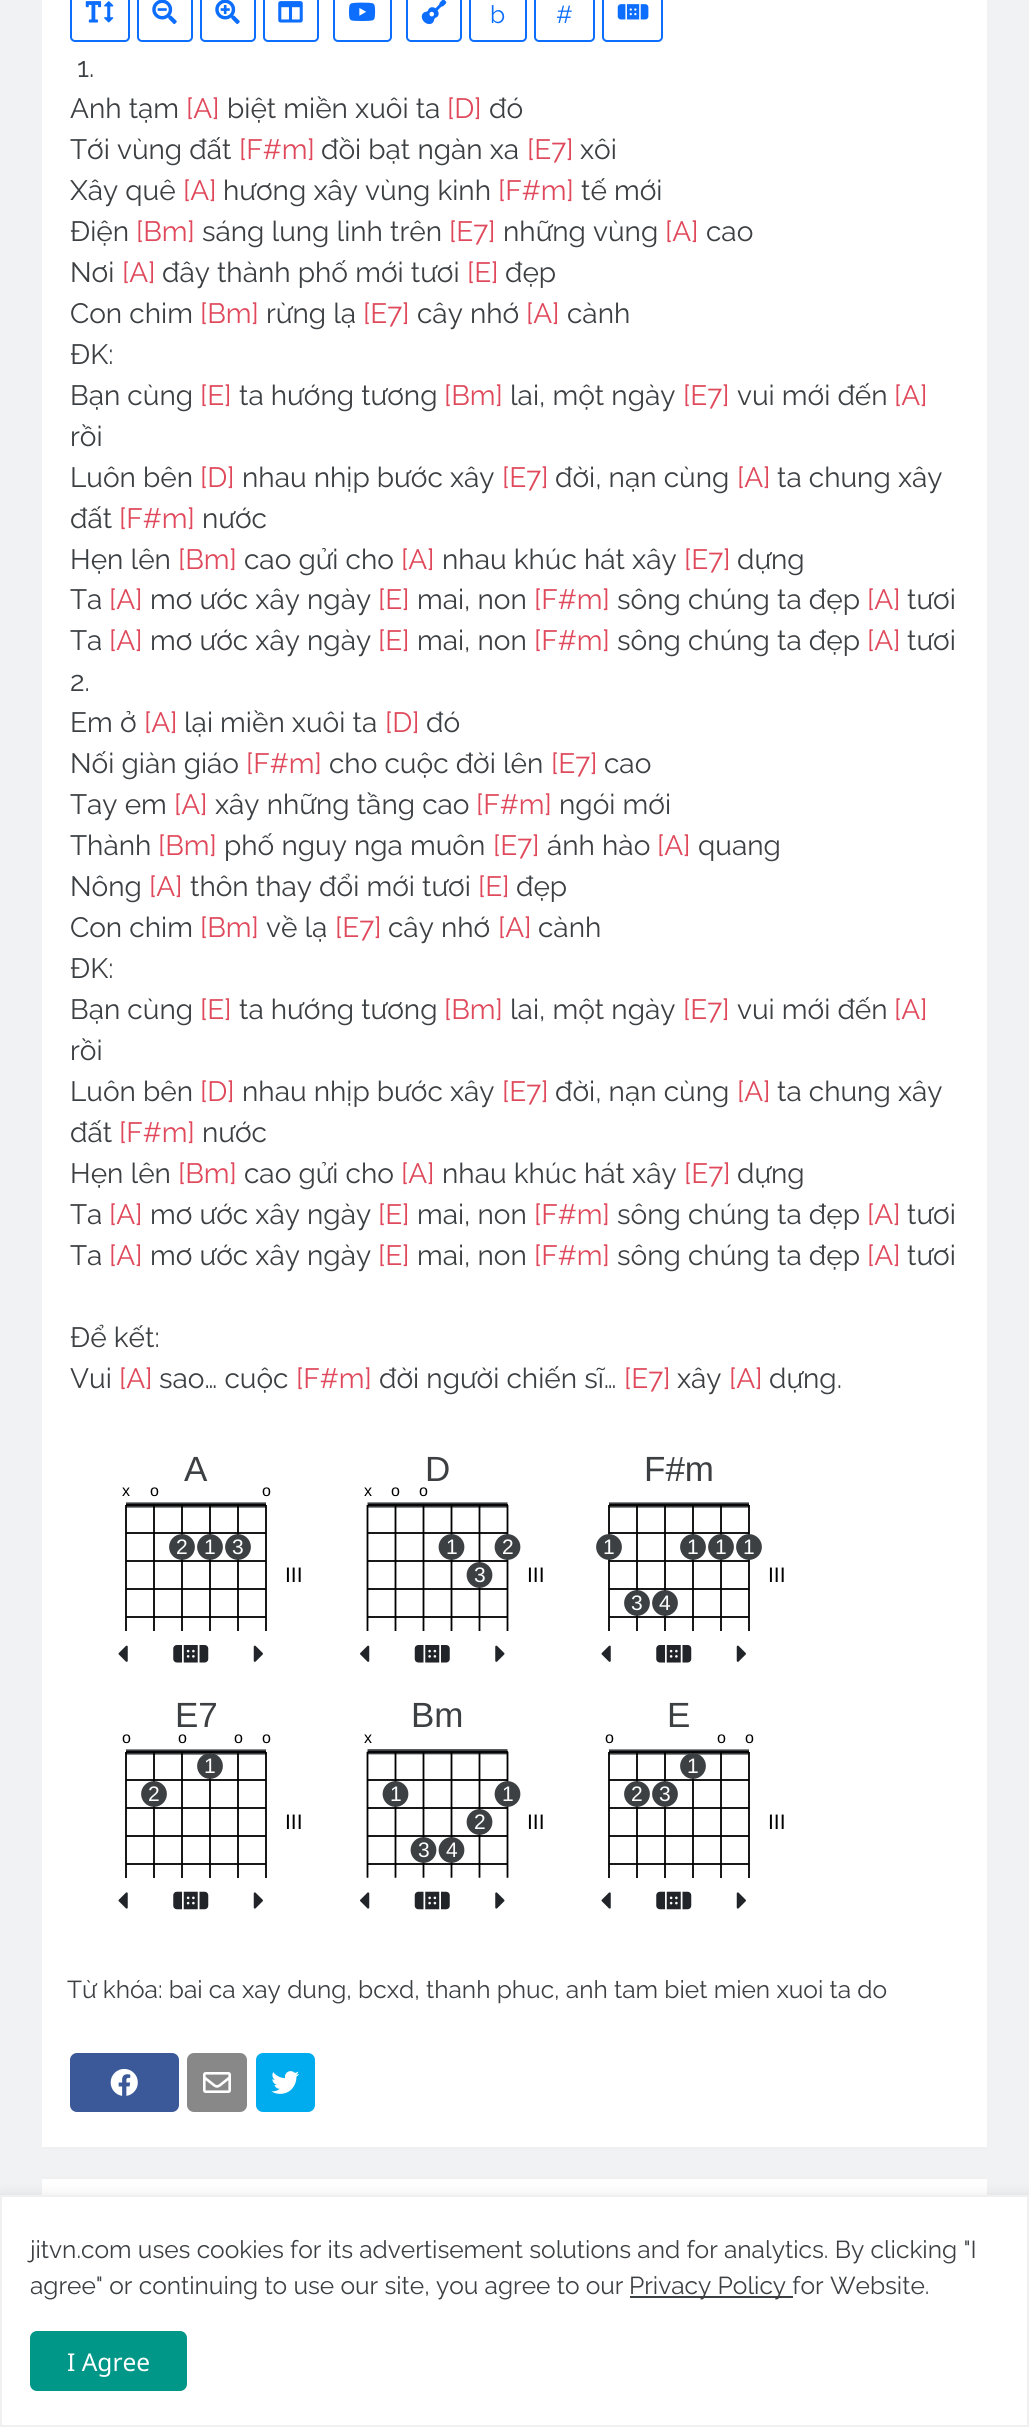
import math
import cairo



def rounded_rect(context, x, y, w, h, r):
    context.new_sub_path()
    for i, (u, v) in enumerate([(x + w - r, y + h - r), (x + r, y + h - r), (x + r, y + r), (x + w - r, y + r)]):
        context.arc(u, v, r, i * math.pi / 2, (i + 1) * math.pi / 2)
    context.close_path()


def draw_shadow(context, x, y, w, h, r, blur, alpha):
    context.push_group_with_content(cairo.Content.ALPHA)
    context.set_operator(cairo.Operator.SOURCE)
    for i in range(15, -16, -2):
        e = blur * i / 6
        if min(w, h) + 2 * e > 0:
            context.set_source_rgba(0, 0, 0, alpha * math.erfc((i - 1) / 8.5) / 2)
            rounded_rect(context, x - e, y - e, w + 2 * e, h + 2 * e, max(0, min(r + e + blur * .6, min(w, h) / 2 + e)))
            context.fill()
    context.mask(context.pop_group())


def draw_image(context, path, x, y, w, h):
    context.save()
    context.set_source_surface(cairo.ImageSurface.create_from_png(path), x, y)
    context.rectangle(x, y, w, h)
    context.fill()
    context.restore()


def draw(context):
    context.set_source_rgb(241 / 255, 242 / 255, 244 / 255)
    context.paint()
    context.set_source_rgb(1, 1, 1)
    context.rectangle(42, 0, 945, 2147)
    context.fill()
    context.set_source_rgb(240 / 255, 240 / 255, 240 / 255)
    context.rectangle(42, 2147, 945, 2)
    context.fill()
    rounded_rect(context, 71, -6, 58, 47, 4)
    context.set_source_rgb(13 / 255, 110 / 255, 253 / 255)
    context.stroke()
    draw_image(context, "images/1.png", 85, 1, 29, 22)
    rounded_rect(context, 138, -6, 54, 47, 4)
    context.stroke()
    draw_image(context, "images/2.png", 152, 0, 25, 24)
    rounded_rect(context, 201, -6, 54, 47, 4)
    context.stroke()
    draw_image(context, "images/3.png", 215, 0, 25, 24)
    rounded_rect(context, 264, -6, 54, 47, 4)
    context.stroke()
    draw_image(context, "images/4.png", 278, 1, 25, 22)
    rounded_rect(context, 334, -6, 57, 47, 4)
    context.stroke()
    draw_image(context, "images/5.png", 348, 2, 28, 19)
    rounded_rect(context, 407, -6, 54, 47, 4)
    context.stroke()
    draw_image(context, "images/6.png", 421, 0, 26, 25)
    rounded_rect(context, 470, -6, 56, 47, 4)
    context.stroke()
    rounded_rect(context, 535, -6, 59, 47, 4)
    context.stroke()
    rounded_rect(context, 603, -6, 59, 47, 4)
    context.stroke()
    draw_image(context, "images/7.png", 617, 4, 32, 16)
    context.new_path()
    context.move_to(126, 1505)
    context.line_to(266, 1505)
    context.set_source_rgb(60 / 255, 64 / 255, 67 / 255)
    context.set_line_width(5.2)
    context.stroke()
    context.set_source_rgb(6 / 255, 6 / 255, 7 / 255)
    context.rectangle(126, 1504, 140, 2)
    context.fill()
    context.set_source_rgb(26 / 255, 26 / 255, 26 / 255)
    context.rectangle(126, 1532, 140, 2)
    context.fill()
    context.rectangle(126, 1560, 140, 2)
    context.fill()
    context.rectangle(126, 1588, 140, 2)
    context.fill()
    context.rectangle(126, 1616, 140, 2)
    context.fill()
    context.set_source_rgba(0, 0, 0, 0.9)
    context.rectangle(125, 1505, 2, 126)
    context.fill()
    context.rectangle(153, 1505, 2, 126)
    context.fill()
    context.rectangle(181, 1505, 2, 126)
    context.fill()
    context.set_source_rgb(60 / 255, 64 / 255, 67 / 255)
    context.arc(182, 1547, 12, 0, 2 * math.pi)
    context.fill_preserve()
    context.set_line_width(1.8)
    context.stroke()
    context.set_source_rgba(0, 0, 0, 0.9)
    context.rectangle(209, 1505, 2, 126)
    context.fill()
    context.set_source_rgb(60 / 255, 64 / 255, 67 / 255)
    context.arc(210, 1547, 12, 0, 2 * math.pi)
    context.fill_preserve()
    context.stroke()
    context.set_source_rgba(0, 0, 0, 0.9)
    context.rectangle(237, 1505, 2, 126)
    context.fill()
    context.set_source_rgb(60 / 255, 64 / 255, 67 / 255)
    context.arc(238, 1547, 12, 0, 2 * math.pi)
    context.fill_preserve()
    context.stroke()
    context.set_source_rgba(0, 0, 0, 0.9)
    context.rectangle(265, 1505, 2, 126)
    context.fill()
    draw_image(context, "images/8.png", 118, 1645, 10, 17)
    draw_image(context, "images/9.png", 173, 1645, 36, 18)
    draw_image(context, "images/10.png", 253, 1645, 10, 17)
    draw_image(context, "images/11.png", 366, 1502, 155, 129)
    draw_image(context, "images/12.png", 360, 1645, 10, 17)
    draw_image(context, "images/13.png", 414, 1645, 36, 18)
    draw_image(context, "images/14.png", 495, 1645, 10, 17)
    draw_image(context, "images/15.png", 596, 1502, 166, 129)
    draw_image(context, "images/8.png", 601, 1645, 10, 17)
    draw_image(context, "images/9.png", 656, 1645, 36, 18)
    draw_image(context, "images/10.png", 736, 1645, 10, 17)
    context.new_path()
    context.move_to(126, 1752)
    context.line_to(266, 1752)
    context.set_source_rgb(60 / 255, 64 / 255, 67 / 255)
    context.set_line_width(5.2)
    context.stroke()
    context.set_source_rgb(6 / 255, 6 / 255, 7 / 255)
    context.rectangle(126, 1751, 140, 2)
    context.fill()
    context.set_source_rgb(26 / 255, 26 / 255, 26 / 255)
    context.rectangle(126, 1779, 140, 2)
    context.fill()
    context.rectangle(126, 1807, 140, 2)
    context.fill()
    context.rectangle(126, 1835, 140, 2)
    context.fill()
    context.rectangle(126, 1863, 140, 2)
    context.fill()
    context.set_source_rgba(0, 0, 0, 0.9)
    context.rectangle(209, 1752, 2, 126)
    context.fill()
    context.set_source_rgb(60 / 255, 64 / 255, 67 / 255)
    context.arc(210, 1766, 12, 0, 2 * math.pi)
    context.fill_preserve()
    context.set_line_width(1.8)
    context.stroke()
    context.set_source_rgba(0, 0, 0, 0.9)
    context.rectangle(125, 1752, 2, 126)
    context.fill()
    context.rectangle(153, 1752, 2, 126)
    context.fill()
    context.rectangle(181, 1752, 2, 126)
    context.fill()
    context.set_source_rgb(60 / 255, 64 / 255, 67 / 255)
    context.arc(154, 1794, 12, 0, 2 * math.pi)
    context.fill_preserve()
    context.stroke()
    context.set_source_rgba(0, 0, 0, 0.9)
    context.rectangle(237, 1752, 2, 126)
    context.fill()
    context.rectangle(265, 1752, 2, 126)
    context.fill()
    draw_image(context, "images/16.png", 118, 1892, 10, 17)
    draw_image(context, "images/17.png", 173, 1891, 36, 19)
    draw_image(context, "images/18.png", 253, 1892, 10, 17)
    draw_image(context, "images/19.png", 366, 1749, 155, 129)
    draw_image(context, "images/20.png", 360, 1892, 10, 17)
    draw_image(context, "images/21.png", 414, 1891, 36, 19)
    draw_image(context, "images/22.png", 495, 1892, 10, 17)
    context.new_path()
    context.move_to(609, 1752)
    context.line_to(749, 1752)
    context.set_source_rgb(60 / 255, 64 / 255, 67 / 255)
    context.set_line_width(5.2)
    context.stroke()
    context.set_source_rgb(6 / 255, 6 / 255, 7 / 255)
    context.rectangle(609, 1751, 140, 2)
    context.fill()
    context.set_source_rgb(26 / 255, 26 / 255, 26 / 255)
    context.rectangle(609, 1779, 140, 2)
    context.fill()
    context.rectangle(609, 1807, 140, 2)
    context.fill()
    context.rectangle(609, 1835, 140, 2)
    context.fill()
    context.rectangle(609, 1863, 140, 2)
    context.fill()
    context.set_source_rgba(0, 0, 0, 0.9)
    context.rectangle(692, 1752, 2, 126)
    context.fill()
    context.set_source_rgb(60 / 255, 64 / 255, 67 / 255)
    context.arc(693, 1766, 12, 0, 2 * math.pi)
    context.fill_preserve()
    context.set_line_width(1.8)
    context.stroke()
    context.set_source_rgba(0, 0, 0, 0.9)
    context.rectangle(608, 1752, 2, 126)
    context.fill()
    context.rectangle(636, 1752, 2, 126)
    context.fill()
    context.set_source_rgb(60 / 255, 64 / 255, 67 / 255)
    context.arc(637, 1794, 12, 0, 2 * math.pi)
    context.fill_preserve()
    context.stroke()
    context.set_source_rgba(0, 0, 0, 0.9)
    context.rectangle(664, 1752, 2, 126)
    context.fill()
    context.set_source_rgb(60 / 255, 64 / 255, 67 / 255)
    context.arc(665, 1794, 12, 0, 2 * math.pi)
    context.fill_preserve()
    context.stroke()
    context.set_source_rgba(0, 0, 0, 0.9)
    context.rectangle(720, 1752, 2, 126)
    context.fill()
    context.rectangle(748, 1752, 2, 126)
    context.fill()
    draw_image(context, "images/16.png", 601, 1892, 10, 17)
    draw_image(context, "images/17.png", 656, 1891, 36, 19)
    draw_image(context, "images/18.png", 736, 1892, 10, 17)
    context.set_source_rgb(59 / 255, 89 / 255, 153 / 255)
    rounded_rect(context, 70, 2053, 109, 59, 7)
    context.fill()
    draw_image(context, "images/23.png", 110, 2068, 28, 28)
    context.set_source_rgb(136 / 255, 136 / 255, 136 / 255)
    rounded_rect(context, 187, 2053, 60, 59, 7)
    context.fill()
    draw_image(context, "images/24.png", 203, 2072, 28, 21)
    context.set_source_rgb(0, 172 / 255, 238 / 255)
    rounded_rect(context, 256, 2053, 59, 59, 7)
    context.fill()
    draw_image(context, "images/25.png", 271, 2071, 29, 23)
    context.set_source_rgb(1, 1, 1)
    context.rectangle(42, 2179, 945, 16)
    context.fill()
    context.set_source_rgb(240 / 255, 240 / 255, 240 / 255)
    context.rectangle(42, 2177, 945, 2)
    context.fill()
    context.set_source_rgb(0, 0, 0)
    draw_shadow(context, 0, 2196, 1029, 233, 0, 7, 0.1)
    context.set_source_rgb(1, 1, 1)
    context.rectangle(1, 2196, 1027, 230)
    context.fill_preserve()
    context.set_source_rgb(240 / 255, 240 / 255, 240 / 255)
    context.set_line_width(2)
    context.stroke()
    context.set_source_rgb(60 / 255, 64 / 255, 67 / 255)
    context.rectangle(630, 2296, 163, 2)
    context.fill()
    context.set_source_rgb(0, 150 / 255, 136 / 255)
    rounded_rect(context, 30, 2331, 157, 60, 7)
    context.fill()
    context.select_font_face("Raleway")
    context.set_font_size(24.5)
    context.set_source_rgb(13 / 255, 110 / 255, 253 / 255)
    context.move_to(490, 23)
    context.show_text("b")
    context.move_to(556, 23)
    context.show_text("#")
    context.set_font_size(28)
    context.set_source_rgb(60 / 255, 64 / 255, 67 / 255)
    context.move_to(77, 77)
    context.show_text("1.")
    context.move_to(70, 118)
    context.show_text("Anh tạm")
    context.set_source_rgb(223 / 255, 73 / 255, 91 / 255)
    context.move_to(186, 118)
    context.show_text("[A]")
    context.set_source_rgb(60 / 255, 64 / 255, 67 / 255)
    context.move_to(227, 118)
    context.show_text("biệt miền xuôi ta")
    context.set_source_rgb(223 / 255, 73 / 255, 91 / 255)
    context.move_to(447, 118)
    context.show_text("[D]")
    context.set_source_rgb(60 / 255, 64 / 255, 67 / 255)
    context.move_to(489, 118)
    context.show_text("đó")
    context.move_to(70, 159)
    context.show_text("Tới vùng đất")
    context.set_source_rgb(223 / 255, 73 / 255, 91 / 255)
    context.move_to(239, 159)
    context.show_text("[F#m]")
    context.set_source_rgb(60 / 255, 64 / 255, 67 / 255)
    context.move_to(321, 159)
    context.show_text("đồi bạt ngàn xa")
    context.set_source_rgb(223 / 255, 73 / 255, 91 / 255)
    context.move_to(527, 159)
    context.show_text("[E7]")
    context.set_source_rgb(60 / 255, 64 / 255, 67 / 255)
    context.move_to(580, 159)
    context.show_text("xôi")
    context.move_to(70, 200)
    context.show_text("Xây quê")
    context.set_source_rgb(223 / 255, 73 / 255, 91 / 255)
    context.move_to(183, 200)
    context.show_text("[A]")
    context.set_source_rgb(60 / 255, 64 / 255, 67 / 255)
    context.move_to(223, 200)
    context.show_text("hương xây vùng kinh")
    context.set_source_rgb(223 / 255, 73 / 255, 91 / 255)
    context.move_to(498, 200)
    context.show_text("[F#m]")
    context.set_source_rgb(60 / 255, 64 / 255, 67 / 255)
    context.move_to(581, 200)
    context.show_text("tế mới")
    context.move_to(70, 241)
    context.show_text("Điện")
    context.set_source_rgb(223 / 255, 73 / 255, 91 / 255)
    context.move_to(136, 241)
    context.show_text("[Bm]")
    context.set_source_rgb(60 / 255, 64 / 255, 67 / 255)
    context.move_to(202, 241)
    context.show_text("sáng lung linh trên")
    context.set_source_rgb(223 / 255, 73 / 255, 91 / 255)
    context.move_to(449, 241)
    context.show_text("[E7]")
    context.set_source_rgb(60 / 255, 64 / 255, 67 / 255)
    context.move_to(503, 241)
    context.show_text("những vùng")
    context.set_source_rgb(223 / 255, 73 / 255, 91 / 255)
    context.move_to(665, 241)
    context.show_text("[A]")
    context.set_source_rgb(60 / 255, 64 / 255, 67 / 255)
    context.move_to(706, 241)
    context.show_text("cao")
    context.move_to(70, 282)
    context.show_text("Nơi")
    context.set_source_rgb(223 / 255, 73 / 255, 91 / 255)
    context.move_to(122, 282)
    context.show_text("[A]")
    context.set_source_rgb(60 / 255, 64 / 255, 67 / 255)
    context.move_to(162, 282)
    context.show_text("đây thành phố mới tươi")
    context.set_source_rgb(223 / 255, 73 / 255, 91 / 255)
    context.move_to(467, 282)
    context.show_text("[E]")
    context.set_source_rgb(60 / 255, 64 / 255, 67 / 255)
    context.move_to(505, 282)
    context.show_text("đẹp")
    context.move_to(70, 323)
    context.show_text("Con chim")
    context.set_source_rgb(223 / 255, 73 / 255, 91 / 255)
    context.move_to(200, 323)
    context.show_text("[Bm]")
    context.set_source_rgb(60 / 255, 64 / 255, 67 / 255)
    context.move_to(266, 323)
    context.show_text("rừng lạ")
    context.set_source_rgb(223 / 255, 73 / 255, 91 / 255)
    context.move_to(363, 323)
    context.show_text("[E7]")
    context.set_source_rgb(60 / 255, 64 / 255, 67 / 255)
    context.move_to(417, 323)
    context.show_text("cây nhớ")
    context.set_source_rgb(223 / 255, 73 / 255, 91 / 255)
    context.move_to(526, 323)
    context.show_text("[A]")
    context.set_source_rgb(60 / 255, 64 / 255, 67 / 255)
    context.move_to(567, 323)
    context.show_text("cành")
    context.move_to(70, 364)
    context.show_text("ĐK:")
    context.move_to(70, 405)
    context.show_text("Bạn cùng")
    context.set_source_rgb(223 / 255, 73 / 255, 91 / 255)
    context.move_to(200, 405)
    context.show_text("[E]")
    context.set_source_rgb(60 / 255, 64 / 255, 67 / 255)
    context.move_to(239, 405)
    context.show_text("ta hướng tương")
    context.set_source_rgb(223 / 255, 73 / 255, 91 / 255)
    context.move_to(444, 405)
    context.show_text("[Bm]")
    context.set_source_rgb(60 / 255, 64 / 255, 67 / 255)
    context.move_to(510, 405)
    context.show_text("lai, một ngày")
    context.set_source_rgb(223 / 255, 73 / 255, 91 / 255)
    context.move_to(683, 405)
    context.show_text("[E7]")
    context.set_source_rgb(60 / 255, 64 / 255, 67 / 255)
    context.move_to(737, 405)
    context.show_text("vui mới đến")
    context.set_source_rgb(223 / 255, 73 / 255, 91 / 255)
    context.move_to(894, 405)
    context.show_text("[A]")
    context.set_source_rgb(60 / 255, 64 / 255, 67 / 255)
    context.move_to(70, 446)
    context.show_text("rồi")
    context.move_to(70, 487)
    context.show_text("Luôn bên")
    context.set_source_rgb(223 / 255, 73 / 255, 91 / 255)
    context.move_to(200, 487)
    context.show_text("[D]")
    context.set_source_rgb(60 / 255, 64 / 255, 67 / 255)
    context.move_to(242, 487)
    context.show_text("nhau nhịp bước xây")
    context.set_source_rgb(223 / 255, 73 / 255, 91 / 255)
    context.move_to(502, 487)
    context.show_text("[E7]")
    context.set_source_rgb(60 / 255, 64 / 255, 67 / 255)
    context.move_to(555, 487)
    context.show_text("đời, nạn cùng")
    context.set_source_rgb(223 / 255, 73 / 255, 91 / 255)
    context.move_to(737, 487)
    context.show_text("[A]")
    context.set_source_rgb(60 / 255, 64 / 255, 67 / 255)
    context.move_to(777, 487)
    context.show_text("ta chung xây")
    context.move_to(70, 528)
    context.show_text("đất")
    context.set_source_rgb(223 / 255, 73 / 255, 91 / 255)
    context.move_to(119, 528)
    context.show_text("[F#m]")
    context.set_source_rgb(60 / 255, 64 / 255, 67 / 255)
    context.move_to(202, 528)
    context.show_text("nước")
    context.move_to(70, 569)
    context.show_text("Hẹn lên")
    context.set_source_rgb(223 / 255, 73 / 255, 91 / 255)
    context.move_to(178, 569)
    context.show_text("[Bm]")
    context.set_source_rgb(60 / 255, 64 / 255, 67 / 255)
    context.move_to(244, 569)
    context.show_text("cao gửi cho")
    context.set_source_rgb(223 / 255, 73 / 255, 91 / 255)
    context.move_to(401, 569)
    context.show_text("[A]")
    context.set_source_rgb(60 / 255, 64 / 255, 67 / 255)
    context.move_to(442, 569)
    context.show_text("nhau khúc hát xây")
    context.set_source_rgb(223 / 255, 73 / 255, 91 / 255)
    context.move_to(684, 569)
    context.show_text("[E7]")
    context.set_source_rgb(60 / 255, 64 / 255, 67 / 255)
    context.move_to(737, 569)
    context.show_text("dựng")
    context.move_to(70, 609)
    context.show_text("Ta")
    context.set_source_rgb(223 / 255, 73 / 255, 91 / 255)
    context.move_to(109, 609)
    context.show_text("[A]")
    context.set_source_rgb(60 / 255, 64 / 255, 67 / 255)
    context.move_to(150, 609)
    context.show_text("mơ ước xây ngày")
    context.set_source_rgb(223 / 255, 73 / 255, 91 / 255)
    context.move_to(378, 609)
    context.show_text("[E]")
    context.set_source_rgb(60 / 255, 64 / 255, 67 / 255)
    context.move_to(417, 609)
    context.show_text("mai, non")
    context.set_source_rgb(223 / 255, 73 / 255, 91 / 255)
    context.move_to(534, 609)
    context.show_text("[F#m]")
    context.set_source_rgb(60 / 255, 64 / 255, 67 / 255)
    context.move_to(617, 609)
    context.show_text("sông chúng ta đẹp")
    context.set_source_rgb(223 / 255, 73 / 255, 91 / 255)
    context.move_to(867, 609)
    context.show_text("[A]")
    context.set_source_rgb(60 / 255, 64 / 255, 67 / 255)
    context.move_to(907, 609)
    context.show_text("tươi")
    context.move_to(70, 650)
    context.show_text("Ta")
    context.set_source_rgb(223 / 255, 73 / 255, 91 / 255)
    context.move_to(109, 650)
    context.show_text("[A]")
    context.set_source_rgb(60 / 255, 64 / 255, 67 / 255)
    context.move_to(150, 650)
    context.show_text("mơ ước xây ngày")
    context.set_source_rgb(223 / 255, 73 / 255, 91 / 255)
    context.move_to(378, 650)
    context.show_text("[E]")
    context.set_source_rgb(60 / 255, 64 / 255, 67 / 255)
    context.move_to(417, 650)
    context.show_text("mai, non")
    context.set_source_rgb(223 / 255, 73 / 255, 91 / 255)
    context.move_to(534, 650)
    context.show_text("[F#m]")
    context.set_source_rgb(60 / 255, 64 / 255, 67 / 255)
    context.move_to(617, 650)
    context.show_text("sông chúng ta đẹp")
    context.set_source_rgb(223 / 255, 73 / 255, 91 / 255)
    context.move_to(867, 650)
    context.show_text("[A]")
    context.set_source_rgb(60 / 255, 64 / 255, 67 / 255)
    context.move_to(907, 650)
    context.show_text("tươi")
    context.move_to(70, 691)
    context.show_text("2.")
    context.move_to(70, 732)
    context.show_text("Em ở")
    context.set_source_rgb(223 / 255, 73 / 255, 91 / 255)
    context.move_to(144, 732)
    context.show_text("[A]")
    context.set_source_rgb(60 / 255, 64 / 255, 67 / 255)
    context.move_to(184, 732)
    context.show_text("lại miền xuôi ta")
    context.set_source_rgb(223 / 255, 73 / 255, 91 / 255)
    context.move_to(385, 732)
    context.show_text("[D]")
    context.set_source_rgb(60 / 255, 64 / 255, 67 / 255)
    context.move_to(426, 732)
    context.show_text("đó")
    context.move_to(70, 773)
    context.show_text("Nối giàn giáo")
    context.set_source_rgb(223 / 255, 73 / 255, 91 / 255)
    context.move_to(246, 773)
    context.show_text("[F#m]")
    context.set_source_rgb(60 / 255, 64 / 255, 67 / 255)
    context.move_to(329, 773)
    context.show_text("cho cuộc đời lên")
    context.set_source_rgb(223 / 255, 73 / 255, 91 / 255)
    context.move_to(551, 773)
    context.show_text("[E7]")
    context.set_source_rgb(60 / 255, 64 / 255, 67 / 255)
    context.move_to(604, 773)
    context.show_text("cao")
    context.move_to(70, 814)
    context.show_text("Tay em")
    context.set_source_rgb(223 / 255, 73 / 255, 91 / 255)
    context.move_to(174, 814)
    context.show_text("[A]")
    context.set_source_rgb(60 / 255, 64 / 255, 67 / 255)
    context.move_to(215, 814)
    context.show_text("xây những tầng cao")
    context.set_source_rgb(223 / 255, 73 / 255, 91 / 255)
    context.move_to(476, 814)
    context.show_text("[F#m]")
    context.set_source_rgb(60 / 255, 64 / 255, 67 / 255)
    context.move_to(559, 814)
    context.show_text("ngói mới")
    context.move_to(70, 855)
    context.show_text("Thành")
    context.set_source_rgb(223 / 255, 73 / 255, 91 / 255)
    context.move_to(158, 855)
    context.show_text("[Bm]")
    context.set_source_rgb(60 / 255, 64 / 255, 67 / 255)
    context.move_to(224, 855)
    context.show_text("phố nguy nga muôn")
    context.set_source_rgb(223 / 255, 73 / 255, 91 / 255)
    context.move_to(493, 855)
    context.show_text("[E7]")
    context.set_source_rgb(60 / 255, 64 / 255, 67 / 255)
    context.move_to(547, 855)
    context.show_text("ánh hào")
    context.set_source_rgb(223 / 255, 73 / 255, 91 / 255)
    context.move_to(657, 855)
    context.show_text("[A]")
    context.set_source_rgb(60 / 255, 64 / 255, 67 / 255)
    context.move_to(698, 855)
    context.show_text("quang")
    context.move_to(70, 896)
    context.show_text("Nông")
    context.set_source_rgb(223 / 255, 73 / 255, 91 / 255)
    context.move_to(149, 896)
    context.show_text("[A]")
    context.set_source_rgb(60 / 255, 64 / 255, 67 / 255)
    context.move_to(190, 896)
    context.show_text("thôn thay đổi mới tươi")
    context.set_source_rgb(223 / 255, 73 / 255, 91 / 255)
    context.move_to(478, 896)
    context.show_text("[E]")
    context.set_source_rgb(60 / 255, 64 / 255, 67 / 255)
    context.move_to(516, 896)
    context.show_text("đẹp")
    context.move_to(70, 937)
    context.show_text("Con chim")
    context.set_source_rgb(223 / 255, 73 / 255, 91 / 255)
    context.move_to(200, 937)
    context.show_text("[Bm]")
    context.set_source_rgb(60 / 255, 64 / 255, 67 / 255)
    context.move_to(266, 937)
    context.show_text("về lạ")
    context.set_source_rgb(223 / 255, 73 / 255, 91 / 255)
    context.move_to(335, 937)
    context.show_text("[E7]")
    context.set_source_rgb(60 / 255, 64 / 255, 67 / 255)
    context.move_to(388, 937)
    context.show_text("cây nhớ")
    context.set_source_rgb(223 / 255, 73 / 255, 91 / 255)
    context.move_to(498, 937)
    context.show_text("[A]")
    context.set_source_rgb(60 / 255, 64 / 255, 67 / 255)
    context.move_to(538, 937)
    context.show_text("cành")
    context.move_to(70, 978)
    context.show_text("ĐK:")
    context.move_to(70, 1019)
    context.show_text("Bạn cùng")
    context.set_source_rgb(223 / 255, 73 / 255, 91 / 255)
    context.move_to(200, 1019)
    context.show_text("[E]")
    context.set_source_rgb(60 / 255, 64 / 255, 67 / 255)
    context.move_to(239, 1019)
    context.show_text("ta hướng tương")
    context.set_source_rgb(223 / 255, 73 / 255, 91 / 255)
    context.move_to(444, 1019)
    context.show_text("[Bm]")
    context.set_source_rgb(60 / 255, 64 / 255, 67 / 255)
    context.move_to(510, 1019)
    context.show_text("lai, một ngày")
    context.set_source_rgb(223 / 255, 73 / 255, 91 / 255)
    context.move_to(683, 1019)
    context.show_text("[E7]")
    context.set_source_rgb(60 / 255, 64 / 255, 67 / 255)
    context.move_to(737, 1019)
    context.show_text("vui mới đến")
    context.set_source_rgb(223 / 255, 73 / 255, 91 / 255)
    context.move_to(894, 1019)
    context.show_text("[A]")
    context.set_source_rgb(60 / 255, 64 / 255, 67 / 255)
    context.move_to(70, 1060)
    context.show_text("rồi")
    context.move_to(70, 1101)
    context.show_text("Luôn bên")
    context.set_source_rgb(223 / 255, 73 / 255, 91 / 255)
    context.move_to(200, 1101)
    context.show_text("[D]")
    context.set_source_rgb(60 / 255, 64 / 255, 67 / 255)
    context.move_to(242, 1101)
    context.show_text("nhau nhịp bước xây")
    context.set_source_rgb(223 / 255, 73 / 255, 91 / 255)
    context.move_to(502, 1101)
    context.show_text("[E7]")
    context.set_source_rgb(60 / 255, 64 / 255, 67 / 255)
    context.move_to(555, 1101)
    context.show_text("đời, nạn cùng")
    context.set_source_rgb(223 / 255, 73 / 255, 91 / 255)
    context.move_to(737, 1101)
    context.show_text("[A]")
    context.set_source_rgb(60 / 255, 64 / 255, 67 / 255)
    context.move_to(777, 1101)
    context.show_text("ta chung xây")
    context.move_to(70, 1142)
    context.show_text("đất")
    context.set_source_rgb(223 / 255, 73 / 255, 91 / 255)
    context.move_to(119, 1142)
    context.show_text("[F#m]")
    context.set_source_rgb(60 / 255, 64 / 255, 67 / 255)
    context.move_to(202, 1142)
    context.show_text("nước")
    context.move_to(70, 1183)
    context.show_text("Hẹn lên")
    context.set_source_rgb(223 / 255, 73 / 255, 91 / 255)
    context.move_to(178, 1183)
    context.show_text("[Bm]")
    context.set_source_rgb(60 / 255, 64 / 255, 67 / 255)
    context.move_to(244, 1183)
    context.show_text("cao gửi cho")
    context.set_source_rgb(223 / 255, 73 / 255, 91 / 255)
    context.move_to(401, 1183)
    context.show_text("[A]")
    context.set_source_rgb(60 / 255, 64 / 255, 67 / 255)
    context.move_to(442, 1183)
    context.show_text("nhau khúc hát xây")
    context.set_source_rgb(223 / 255, 73 / 255, 91 / 255)
    context.move_to(684, 1183)
    context.show_text("[E7]")
    context.set_source_rgb(60 / 255, 64 / 255, 67 / 255)
    context.move_to(737, 1183)
    context.show_text("dựng")
    context.move_to(70, 1224)
    context.show_text("Ta")
    context.set_source_rgb(223 / 255, 73 / 255, 91 / 255)
    context.move_to(109, 1224)
    context.show_text("[A]")
    context.set_source_rgb(60 / 255, 64 / 255, 67 / 255)
    context.move_to(150, 1224)
    context.show_text("mơ ước xây ngày")
    context.set_source_rgb(223 / 255, 73 / 255, 91 / 255)
    context.move_to(378, 1224)
    context.show_text("[E]")
    context.set_source_rgb(60 / 255, 64 / 255, 67 / 255)
    context.move_to(417, 1224)
    context.show_text("mai, non")
    context.set_source_rgb(223 / 255, 73 / 255, 91 / 255)
    context.move_to(534, 1224)
    context.show_text("[F#m]")
    context.set_source_rgb(60 / 255, 64 / 255, 67 / 255)
    context.move_to(617, 1224)
    context.show_text("sông chúng ta đẹp")
    context.set_source_rgb(223 / 255, 73 / 255, 91 / 255)
    context.move_to(867, 1224)
    context.show_text("[A]")
    context.set_source_rgb(60 / 255, 64 / 255, 67 / 255)
    context.move_to(907, 1224)
    context.show_text("tươi")
    context.move_to(70, 1265)
    context.show_text("Ta")
    context.set_source_rgb(223 / 255, 73 / 255, 91 / 255)
    context.move_to(109, 1265)
    context.show_text("[A]")
    context.set_source_rgb(60 / 255, 64 / 255, 67 / 255)
    context.move_to(150, 1265)
    context.show_text("mơ ước xây ngày")
    context.set_source_rgb(223 / 255, 73 / 255, 91 / 255)
    context.move_to(378, 1265)
    context.show_text("[E]")
    context.set_source_rgb(60 / 255, 64 / 255, 67 / 255)
    context.move_to(417, 1265)
    context.show_text("mai, non")
    context.set_source_rgb(223 / 255, 73 / 255, 91 / 255)
    context.move_to(534, 1265)
    context.show_text("[F#m]")
    context.set_source_rgb(60 / 255, 64 / 255, 67 / 255)
    context.move_to(617, 1265)
    context.show_text("sông chúng ta đẹp")
    context.set_source_rgb(223 / 255, 73 / 255, 91 / 255)
    context.move_to(867, 1265)
    context.show_text("[A]")
    context.set_source_rgb(60 / 255, 64 / 255, 67 / 255)
    context.move_to(907, 1265)
    context.show_text("tươi")
    context.move_to(70, 1347)
    context.show_text("Để kết:")
    context.move_to(70, 1388)
    context.show_text("Vui")
    context.set_source_rgb(223 / 255, 73 / 255, 91 / 255)
    context.move_to(119, 1388)
    context.show_text("[A]")
    context.set_source_rgb(60 / 255, 64 / 255, 67 / 255)
    context.move_to(159, 1388)
    context.show_text("sao… cuộc")
    context.set_source_rgb(223 / 255, 73 / 255, 91 / 255)
    context.move_to(296, 1388)
    context.show_text("[F#m]")
    context.set_source_rgb(60 / 255, 64 / 255, 67 / 255)
    context.move_to(379, 1388)
    context.show_text("đời người chiến sĩ…")
    context.set_source_rgb(223 / 255, 73 / 255, 91 / 255)
    context.move_to(624, 1388)
    context.show_text("[E7]")
    context.set_source_rgb(60 / 255, 64 / 255, 67 / 255)
    context.move_to(677, 1388)
    context.show_text("xây")
    context.set_source_rgb(223 / 255, 73 / 255, 91 / 255)
    context.move_to(729, 1388)
    context.show_text("[A]")
    context.set_source_rgb(60 / 255, 64 / 255, 67 / 255)
    context.move_to(769, 1388)
    context.show_text("dựng.")
    context.select_font_face("Liberation Sans")
    context.set_font_size(35)
    context.move_to(184, 1481)
    context.show_text("A")
    context.set_font_size(16)
    context.set_source_rgb(0, 0, 0)
    context.move_to(122, 1496)
    context.show_text("x")
    context.move_to(150, 1496)
    context.show_text("o")
    context.move_to(262, 1496)
    context.show_text("o")
    context.set_font_size(21)
    context.set_source_rgb(1, 1, 1)
    context.move_to(176, 1554)
    context.show_text("2")
    context.move_to(204, 1554)
    context.show_text("1")
    context.move_to(232, 1554)
    context.show_text("3")
    context.set_source_rgb(0, 0, 0)
    context.move_to(285, 1582)
    context.show_text("III")
    context.set_font_size(35)
    context.set_source_rgb(60 / 255, 64 / 255, 67 / 255)
    context.move_to(425, 1481)
    context.show_text("D")
    context.set_font_size(16)
    context.set_source_rgb(0, 0, 0)
    context.move_to(364, 1496)
    context.show_text("x")
    context.move_to(391, 1496)
    context.show_text("o")
    context.move_to(419, 1496)
    context.show_text("o")
    context.set_font_size(21)
    context.set_source_rgb(1, 1, 1)
    context.move_to(446, 1554)
    context.show_text("1")
    context.move_to(502, 1554)
    context.show_text("2")
    context.move_to(474, 1582)
    context.show_text("3")
    context.set_source_rgb(0, 0, 0)
    context.move_to(527, 1582)
    context.show_text("III")
    context.set_font_size(35)
    context.set_source_rgb(60 / 255, 64 / 255, 67 / 255)
    context.move_to(644, 1481)
    context.show_text("F#m")
    context.set_font_size(21)
    context.set_source_rgb(1, 1, 1)
    context.move_to(603, 1554)
    context.show_text("1")
    context.move_to(687, 1554)
    context.show_text("1")
    context.move_to(715, 1554)
    context.show_text("1")
    context.move_to(743, 1554)
    context.show_text("1")
    context.set_source_rgb(0, 0, 0)
    context.move_to(768, 1582)
    context.show_text("III")
    context.set_source_rgb(1, 1, 1)
    context.move_to(631, 1610)
    context.show_text("3")
    context.move_to(659, 1610)
    context.show_text("4")
    context.set_font_size(35)
    context.set_source_rgb(60 / 255, 64 / 255, 67 / 255)
    context.move_to(175, 1727)
    context.show_text("E7")
    context.set_font_size(16)
    context.set_source_rgb(0, 0, 0)
    context.move_to(122, 1743)
    context.show_text("o")
    context.move_to(178, 1743)
    context.show_text("o")
    context.move_to(234, 1743)
    context.show_text("o")
    context.move_to(262, 1743)
    context.show_text("o")
    context.set_font_size(21)
    context.set_source_rgb(1, 1, 1)
    context.move_to(204, 1773)
    context.show_text("1")
    context.move_to(148, 1801)
    context.show_text("2")
    context.set_source_rgb(0, 0, 0)
    context.move_to(285, 1829)
    context.show_text("III")
    context.set_font_size(35)
    context.set_source_rgb(60 / 255, 64 / 255, 67 / 255)
    context.move_to(411, 1727)
    context.show_text("Bm")
    context.set_font_size(16)
    context.set_source_rgb(0, 0, 0)
    context.move_to(364, 1743)
    context.show_text("x")
    context.set_font_size(21)
    context.set_source_rgb(1, 1, 1)
    context.move_to(390, 1801)
    context.show_text("1")
    context.move_to(502, 1801)
    context.show_text("1")
    context.move_to(474, 1829)
    context.show_text("2")
    context.set_source_rgb(0, 0, 0)
    context.move_to(527, 1829)
    context.show_text("III")
    context.set_source_rgb(1, 1, 1)
    context.move_to(418, 1857)
    context.show_text("3")
    context.move_to(446, 1857)
    context.show_text("4")
    context.set_font_size(35)
    context.set_source_rgb(60 / 255, 64 / 255, 67 / 255)
    context.move_to(667, 1727)
    context.show_text("E")
    context.set_font_size(16)
    context.set_source_rgb(0, 0, 0)
    context.move_to(605, 1743)
    context.show_text("o")
    context.move_to(717, 1743)
    context.show_text("o")
    context.move_to(745, 1743)
    context.show_text("o")
    context.set_font_size(21)
    context.set_source_rgb(1, 1, 1)
    context.move_to(687, 1773)
    context.show_text("1")
    context.move_to(631, 1801)
    context.show_text("2")
    context.move_to(659, 1801)
    context.show_text("3")
    context.set_source_rgb(0, 0, 0)
    context.move_to(768, 1829)
    context.show_text("III")
    context.select_font_face("Raleway")
    context.set_font_size(24.5)
    context.set_source_rgb(60 / 255, 64 / 255, 67 / 255)
    context.move_to(67, 1998)
    context.show_text("Từ khóa: bai ca xay dung, bcxd, thanh phuc, anh tam biet mien xuoi ta do")
    context.move_to(30, 2258)
    context.show_text("jitvn.com uses cookies for its advertisement solutions and for analytics. By clicking \"I")
    context.move_to(30, 2294)
    context.show_text("agree\" or continuing to use our site, you agree to our")
    context.move_to(629, 2294)
    context.show_text("Privacy Policy for Website.")
    context.select_font_face("Noto Sans")
    context.set_source_rgb(1, 1, 1)
    context.move_to(67, 2371)
    context.show_text("I Agree")


surface = cairo.ImageSurface(cairo.Format.RGB24, 1029, 2427)
context = cairo.Context(surface)
options = cairo.FontOptions()
options.set_hint_metrics(cairo.HintMetrics.OFF)
options.set_hint_style(cairo.HintStyle.NONE)
context.set_font_options(options)
context.set_miter_limit(4)
draw(context)
surface.write_to_png("out.png")
